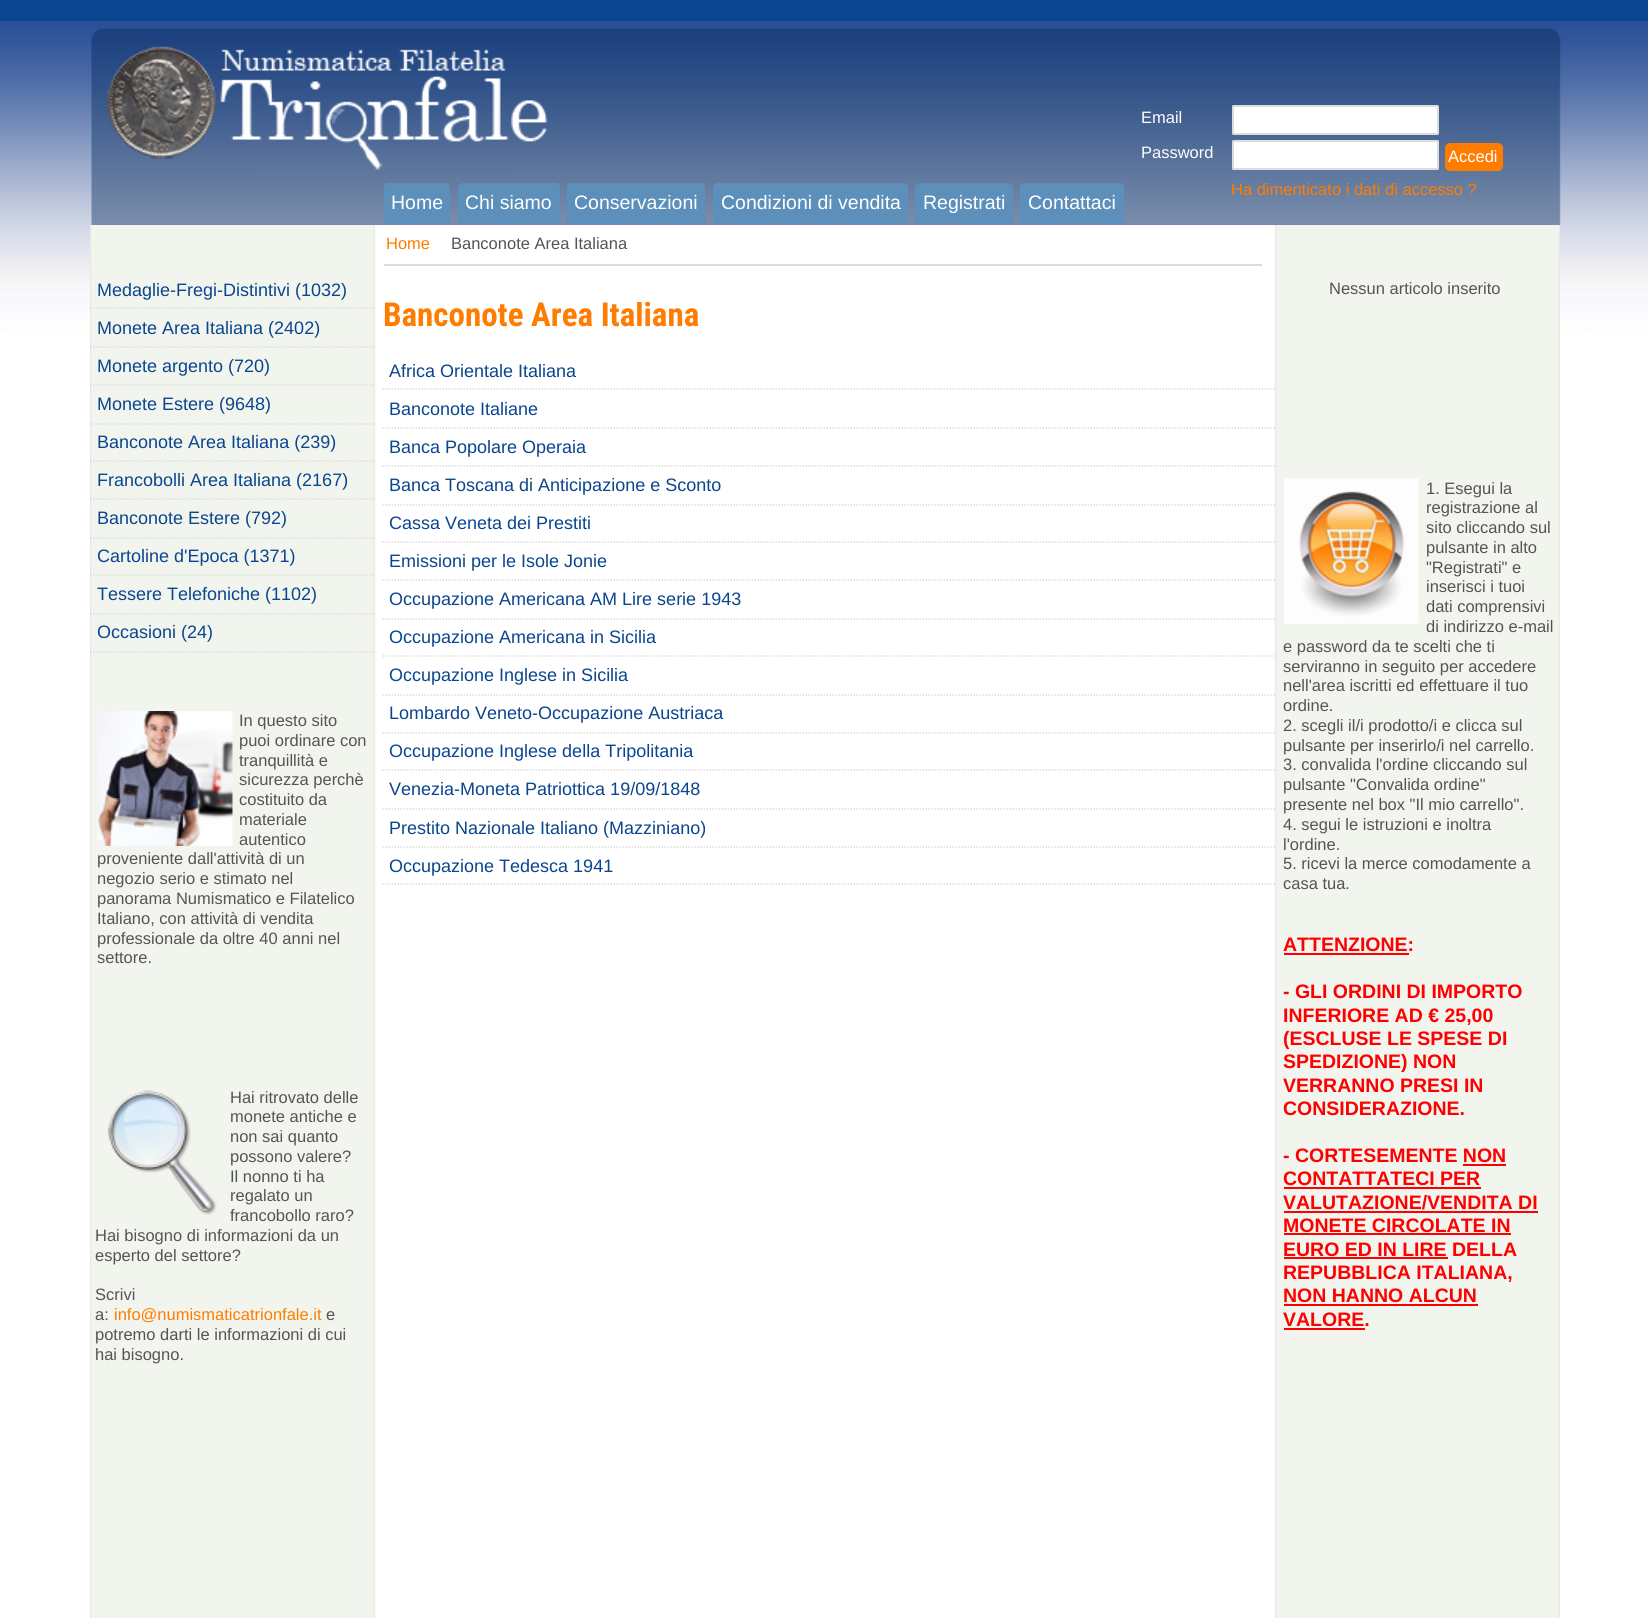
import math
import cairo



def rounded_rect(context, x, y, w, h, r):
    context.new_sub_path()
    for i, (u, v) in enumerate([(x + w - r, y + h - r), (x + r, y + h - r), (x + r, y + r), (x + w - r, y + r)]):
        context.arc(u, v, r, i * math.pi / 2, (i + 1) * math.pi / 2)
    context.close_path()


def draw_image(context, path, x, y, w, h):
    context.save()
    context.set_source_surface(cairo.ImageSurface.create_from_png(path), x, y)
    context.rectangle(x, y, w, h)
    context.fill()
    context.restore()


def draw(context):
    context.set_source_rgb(1, 1, 1)
    context.paint()
    draw_image(context, "images/1.png", 0, 0, 1648, 333)
    draw_image(context, "images/2.png", 91, 28, 1470, 197)
    draw_image(context, "images/3.png", 106, 46, 442, 124)
    context.set_source_rgb(1, 1, 1)
    rounded_rect(context, 1233, 106, 205, 28, 0.5)
    context.fill_preserve()
    context.set_source_rgb(221 / 255, 221 / 255, 221 / 255)
    context.stroke()
    context.set_source_rgb(1, 1, 1)
    rounded_rect(context, 1233, 141, 205, 28, 0.5)
    context.fill_preserve()
    context.set_source_rgb(221 / 255, 221 / 255, 221 / 255)
    context.stroke()
    context.set_source_rgb(1, 124 / 255, 0)
    rounded_rect(context, 1445, 143, 58, 28, 5)
    context.fill()
    context.set_source_rgb(92 / 255, 143 / 255, 186 / 255)
    context.new_path()
    context.move_to(389, 183)
    context.line_to(445, 183)
    context.curve_to(448, 183, 450, 185, 450, 188)
    context.line_to(450, 224)
    context.line_to(384, 224)
    context.line_to(384, 188)
    context.curve_to(384, 185, 386, 183, 389, 183)
    context.close_path()
    context.fill()
    context.new_path()
    context.move_to(463, 183)
    context.line_to(555, 183)
    context.curve_to(558, 183, 560, 185, 560, 188)
    context.line_to(560, 224)
    context.line_to(458, 224)
    context.line_to(458, 188)
    context.curve_to(458, 185, 460, 183, 463, 183)
    context.close_path()
    context.fill()
    context.new_path()
    context.move_to(572, 183)
    context.line_to(700, 183)
    context.curve_to(703, 183, 705, 185, 705, 188)
    context.line_to(705, 224)
    context.line_to(567, 224)
    context.line_to(567, 188)
    context.curve_to(567, 185, 569, 183, 572, 183)
    context.close_path()
    context.fill()
    context.new_path()
    context.move_to(718, 183)
    context.line_to(903, 183)
    context.curve_to(906, 183, 908, 185, 908, 188)
    context.line_to(908, 224)
    context.line_to(713, 224)
    context.line_to(713, 188)
    context.curve_to(713, 185, 715, 183, 718, 183)
    context.close_path()
    context.fill()
    context.new_path()
    context.move_to(920, 183)
    context.line_to(1008, 183)
    context.curve_to(1011, 183, 1013, 185, 1013, 188)
    context.line_to(1013, 224)
    context.line_to(915, 224)
    context.line_to(915, 188)
    context.curve_to(915, 185, 917, 183, 920, 183)
    context.close_path()
    context.fill()
    context.new_path()
    context.move_to(1025, 183)
    context.line_to(1119, 183)
    context.curve_to(1122, 183, 1124, 185, 1124, 188)
    context.line_to(1124, 224)
    context.line_to(1020, 224)
    context.line_to(1020, 188)
    context.curve_to(1020, 185, 1022, 183, 1025, 183)
    context.close_path()
    context.fill()
    draw_image(context, "images/4.png", 90, 225, 1470, 1393)
    context.save()
    context.rectangle(90, 227, 285, 426)
    context.clip()
    context.new_path()
    context.move_to(90, 308)
    context.line_to(460.5, 308)
    context.set_source_rgb(221 / 255, 221 / 255, 221 / 255)
    context.set_line_width(1.5)
    context.set_dash([1.5, 1.5])
    context.stroke()
    context.new_path()
    context.move_to(90, 347)
    context.line_to(460.5, 347)
    context.stroke()
    context.new_path()
    context.move_to(90, 385)
    context.line_to(460.5, 385)
    context.stroke()
    context.new_path()
    context.move_to(90, 424)
    context.line_to(460.5, 424)
    context.stroke()
    context.new_path()
    context.move_to(90, 461)
    context.line_to(460.5, 461)
    context.stroke()
    context.new_path()
    context.move_to(90, 499)
    context.line_to(460.5, 499)
    context.stroke()
    context.new_path()
    context.move_to(90, 538)
    context.line_to(460.5, 538)
    context.stroke()
    context.new_path()
    context.move_to(90, 575)
    context.line_to(460.5, 575)
    context.stroke()
    context.new_path()
    context.move_to(90, 614)
    context.line_to(460.5, 614)
    context.stroke()
    context.new_path()
    context.move_to(90, 652)
    context.line_to(460.5, 652)
    context.stroke()
    context.restore()
    draw_image(context, "images/5.png", 97, 711, 136, 135)
    draw_image(context, "images/6.png", 107, 1090, 110, 125)
    context.set_source_rgb(221 / 255, 221 / 255, 221 / 255)
    context.rectangle(384, 264, 878, 2)
    context.fill()
    context.save()
    context.rectangle(375, 225, 900, 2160)
    context.clip()
    context.new_path()
    context.move_to(382.5, 389)
    context.line_to(1278, 389)
    context.set_line_width(1.5)
    context.set_dash([1.5, 1.5])
    context.stroke()
    context.new_path()
    context.move_to(382.5, 428)
    context.line_to(1278, 428)
    context.stroke()
    context.new_path()
    context.move_to(382.5, 466)
    context.line_to(1278, 466)
    context.stroke()
    context.new_path()
    context.move_to(382.5, 505)
    context.line_to(1278, 505)
    context.stroke()
    context.new_path()
    context.move_to(382.5, 542)
    context.line_to(1278, 542)
    context.stroke()
    context.new_path()
    context.move_to(382.5, 580)
    context.line_to(1278, 580)
    context.stroke()
    context.new_path()
    context.move_to(382.5, 619)
    context.line_to(1278, 619)
    context.stroke()
    context.new_path()
    context.move_to(382.5, 656)
    context.line_to(1278, 656)
    context.stroke()
    context.new_path()
    context.move_to(382.5, 695)
    context.line_to(1278, 695)
    context.stroke()
    context.new_path()
    context.move_to(382.5, 733)
    context.line_to(1278, 733)
    context.stroke()
    context.new_path()
    context.move_to(382.5, 770)
    context.line_to(1278, 770)
    context.stroke()
    context.new_path()
    context.move_to(382.5, 809)
    context.line_to(1278, 809)
    context.stroke()
    context.new_path()
    context.move_to(382.5, 847)
    context.line_to(1278, 847)
    context.stroke()
    context.new_path()
    context.move_to(382.5, 884)
    context.line_to(1278, 884)
    context.stroke()
    context.restore()
    draw_image(context, "images/7.png", 1284, 478, 135, 146)
    context.set_source_rgb(1, 0, 0)
    context.rectangle(1284, 953, 125, 2)
    context.fill()
    context.rectangle(1463, 1164, 43, 2)
    context.fill()
    context.rectangle(1284, 1187, 197, 2)
    context.fill()
    context.rectangle(1284, 1211, 254, 2)
    context.fill()
    context.rectangle(1284, 1233, 227, 2)
    context.fill()
    context.rectangle(1284, 1257, 164, 2)
    context.fill()
    context.rectangle(1284, 1304, 194, 2)
    context.fill()
    context.rectangle(1284, 1328, 81, 2)
    context.fill()
    context.select_font_face("Liberation Sans")
    context.set_font_size(16.5)
    context.set_source_rgb(1, 1, 1)
    context.move_to(1141, 123)
    context.show_text("Email")
    context.move_to(1141, 158)
    context.show_text("Password")
    context.move_to(1448, 162)
    context.show_text("Accedi")
    context.set_source_rgb(1, 124 / 255, 0)
    context.move_to(1231, 195)
    context.show_text("Ha dimenticato i dati di accesso ?")
    context.set_font_size(19.5)
    context.set_source_rgb(1, 1, 1)
    context.move_to(391, 209)
    context.show_text("Home")
    context.move_to(465, 209)
    context.show_text("Chi siamo")
    context.move_to(574, 209)
    context.show_text("Conservazioni")
    context.move_to(721, 209)
    context.show_text("Condizioni di vendita")
    context.move_to(923, 209)
    context.show_text("Registrati")
    context.move_to(1028, 209)
    context.show_text("Contattaci")
    context.set_font_size(18)
    context.set_source_rgb(10 / 255, 69 / 255, 143 / 255)
    context.move_to(97, 296)
    context.show_text("Medaglie-Fregi-Distintivi (1032)")
    context.move_to(97, 334)
    context.show_text("Monete Area Italiana (2402)")
    context.move_to(97, 372)
    context.show_text("Monete argento (720)")
    context.move_to(97, 410)
    context.show_text("Monete Estere (9648)")
    context.move_to(97, 448)
    context.show_text("Banconote Area Italiana (239)")
    context.move_to(97, 486)
    context.show_text("Francobolli Area Italiana (2167)")
    context.move_to(97, 524)
    context.show_text("Banconote Estere (792)")
    context.move_to(97, 562)
    context.show_text("Cartoline d'Epoca (1371)")
    context.move_to(97, 600)
    context.show_text("Tessere Telefoniche (1102)")
    context.move_to(97, 638)
    context.show_text("Occasioni (24)")
    context.set_font_size(16.5)
    context.set_source_rgb(84 / 255, 84 / 255, 84 / 255)
    context.move_to(239, 726)
    context.show_text("In questo sito")
    context.move_to(239, 746)
    context.show_text("puoi ordinare con")
    context.move_to(239, 766)
    context.show_text("tranquillità e")
    context.move_to(239, 785)
    context.show_text("sicurezza perchè")
    context.move_to(239, 805)
    context.show_text("costituito da")
    context.move_to(239, 825)
    context.show_text("materiale")
    context.move_to(239, 845)
    context.show_text("autentico")
    context.move_to(97, 864)
    context.show_text("proveniente dall'attività di un")
    context.move_to(97, 884)
    context.show_text("negozio serio e stimato nel")
    context.move_to(97, 904)
    context.show_text("panorama Numismatico e Filatelico")
    context.move_to(97, 924)
    context.show_text("Italiano, con attività di vendita")
    context.move_to(97, 944)
    context.show_text("professionale da oltre 40 anni nel")
    context.move_to(97, 963)
    context.show_text("settore.")
    context.move_to(230, 1103)
    context.show_text("Hai ritrovato delle")
    context.move_to(230, 1122)
    context.show_text("monete antiche e")
    context.move_to(230, 1142)
    context.show_text("non sai quanto")
    context.move_to(230, 1162)
    context.show_text("possono valere?")
    context.move_to(230, 1182)
    context.show_text("Il nonno ti ha")
    context.move_to(230, 1201)
    context.show_text("regalato un")
    context.move_to(230, 1221)
    context.show_text("francobollo raro?")
    context.move_to(95, 1241)
    context.show_text("Hai bisogno di informazioni da un")
    context.move_to(95, 1261)
    context.show_text("esperto del settore?")
    context.move_to(95, 1300)
    context.show_text("Scrivi")
    context.move_to(95, 1320)
    context.show_text("a:")
    context.set_source_rgb(1, 124 / 255, 0)
    context.move_to(114, 1320)
    context.show_text("info@numismaticatrionfale.it")
    context.set_source_rgb(84 / 255, 84 / 255, 84 / 255)
    context.move_to(326, 1320)
    context.show_text("e")
    context.move_to(95, 1340)
    context.show_text("potremo darti le informazioni di cui")
    context.move_to(95, 1360)
    context.show_text("hai bisogno.")
    context.set_source_rgb(1, 124 / 255, 0)
    context.move_to(386, 249)
    context.show_text("Home")
    context.set_source_rgb(84 / 255, 84 / 255, 84 / 255)
    context.move_to(451, 249)
    context.show_text("Banconote Area Italiana")
    context.save()
    context.rectangle(384, 302, 891, 37)
    context.clip()
    context.select_font_face("Roboto Condensed", cairo.FontSlant.NORMAL, cairo.FontWeight.BOLD)
    context.set_font_size(33)
    context.set_source_rgb(1, 124 / 255, 0)
    context.move_to(383, 326)
    context.show_text("Banconote Area Italiana")
    context.restore()
    context.set_font_size(18)
    context.set_source_rgb(10 / 255, 69 / 255, 143 / 255)
    context.move_to(389, 377)
    context.show_text("Africa Orientale Italiana")
    context.move_to(389, 415)
    context.show_text("Banconote Italiane")
    context.move_to(389, 453)
    context.show_text("Banca Popolare Operaia")
    context.move_to(389, 491)
    context.show_text("Banca Toscana di Anticipazione e Sconto")
    context.move_to(389, 529)
    context.show_text("Cassa Veneta dei Prestiti")
    context.move_to(389, 567)
    context.show_text("Emissioni per le Isole Jonie")
    context.move_to(389, 605)
    context.show_text("Occupazione Americana AM Lire serie 1943")
    context.move_to(389, 643)
    context.show_text("Occupazione Americana in Sicilia")
    context.move_to(389, 681)
    context.show_text("Occupazione Inglese in Sicilia")
    context.move_to(389, 719)
    context.show_text("Lombardo Veneto-Occupazione Austriaca")
    context.move_to(389, 757)
    context.show_text("Occupazione Inglese della Tripolitania")
    context.move_to(389, 795)
    context.show_text("Venezia-Moneta Patriottica 19/09/1848")
    context.move_to(389, 834)
    context.show_text("Prestito Nazionale Italiano (Mazziniano)")
    context.move_to(389, 872)
    context.show_text("Occupazione Tedesca 1941")
    context.set_font_size(16.5)
    context.set_source_rgb(84 / 255, 84 / 255, 84 / 255)
    context.move_to(1329, 294)
    context.show_text("Nessun articolo inserito")
    context.move_to(1426, 494)
    context.show_text("1. Esegui la")
    context.move_to(1426, 513)
    context.show_text("registrazione al")
    context.move_to(1426, 533)
    context.show_text("sito cliccando sul")
    context.move_to(1426, 553)
    context.show_text("pulsante in alto")
    context.move_to(1426, 573)
    context.show_text("\"Registrati\" e")
    context.move_to(1426, 592)
    context.show_text("inserisci i tuoi")
    context.move_to(1426, 612)
    context.show_text("dati comprensivi")
    context.move_to(1426, 632)
    context.show_text("di indirizzo e-mail")
    context.move_to(1283, 652)
    context.show_text("e password da te scelti che ti")
    context.move_to(1283, 672)
    context.show_text("serviranno in seguito per accedere")
    context.move_to(1283, 691)
    context.show_text("nell'area iscritti ed effettuare il tuo")
    context.move_to(1283, 711)
    context.show_text("ordine.")
    context.move_to(1283, 731)
    context.show_text("2. scegli il/i prodotto/i e clicca sul")
    context.move_to(1283, 751)
    context.show_text("pulsante per inserirlo/i nel carrello.")
    context.move_to(1283, 770)
    context.show_text("3. convalida l'ordine cliccando sul")
    context.move_to(1283, 790)
    context.show_text("pulsante \"Convalida ordine\"")
    context.move_to(1283, 810)
    context.show_text("presente nel box \"Il mio carrello\".")
    context.move_to(1283, 830)
    context.show_text("4. segui le istruzioni e inoltra")
    context.move_to(1283, 850)
    context.show_text("l'ordine.")
    context.move_to(1283, 869)
    context.show_text("5. ricevi la merce comodamente a")
    context.move_to(1283, 889)
    context.show_text("casa tua.")
    context.select_font_face("Liberation Sans", cairo.FontSlant.NORMAL, cairo.FontWeight.BOLD)
    context.set_font_size(19.5)
    context.set_source_rgb(1, 0, 0)
    context.move_to(1283, 951)
    context.show_text("ATTENZIONE:")
    context.move_to(1283, 998)
    context.show_text("- GLI ORDINI DI IMPORTO")
    context.move_to(1283, 1022)
    context.show_text("INFERIORE AD € 25,00")
    context.move_to(1283, 1045)
    context.show_text("(ESCLUSE LE SPESE DI")
    context.move_to(1283, 1068)
    context.show_text("SPEDIZIONE) NON")
    context.move_to(1283, 1092)
    context.show_text("VERRANNO PRESI IN")
    context.move_to(1283, 1115)
    context.show_text("CONSIDERAZIONE.")
    context.move_to(1283, 1162)
    context.show_text("- CORTESEMENTE NON")
    context.move_to(1283, 1185)
    context.show_text("CONTATTATECI PER")
    context.move_to(1283, 1209)
    context.show_text("VALUTAZIONE/VENDITA DI")
    context.move_to(1283, 1232)
    context.show_text("MONETE CIRCOLATE IN")
    context.move_to(1283, 1256)
    context.show_text("EURO ED IN LIRE DELLA")
    context.move_to(1283, 1279)
    context.show_text("REPUBBLICA ITALIANA,")
    context.move_to(1283, 1302)
    context.show_text("NON HANNO ALCUN")
    context.move_to(1283, 1326)
    context.show_text("VALORE.")


surface = cairo.ImageSurface(cairo.Format.RGB24, 1648, 1618)
context = cairo.Context(surface)
options = cairo.FontOptions()
options.set_hint_metrics(cairo.HintMetrics.OFF)
options.set_hint_style(cairo.HintStyle.NONE)
context.set_font_options(options)
context.set_miter_limit(4)
draw(context)
surface.write_to_png("out.png")
